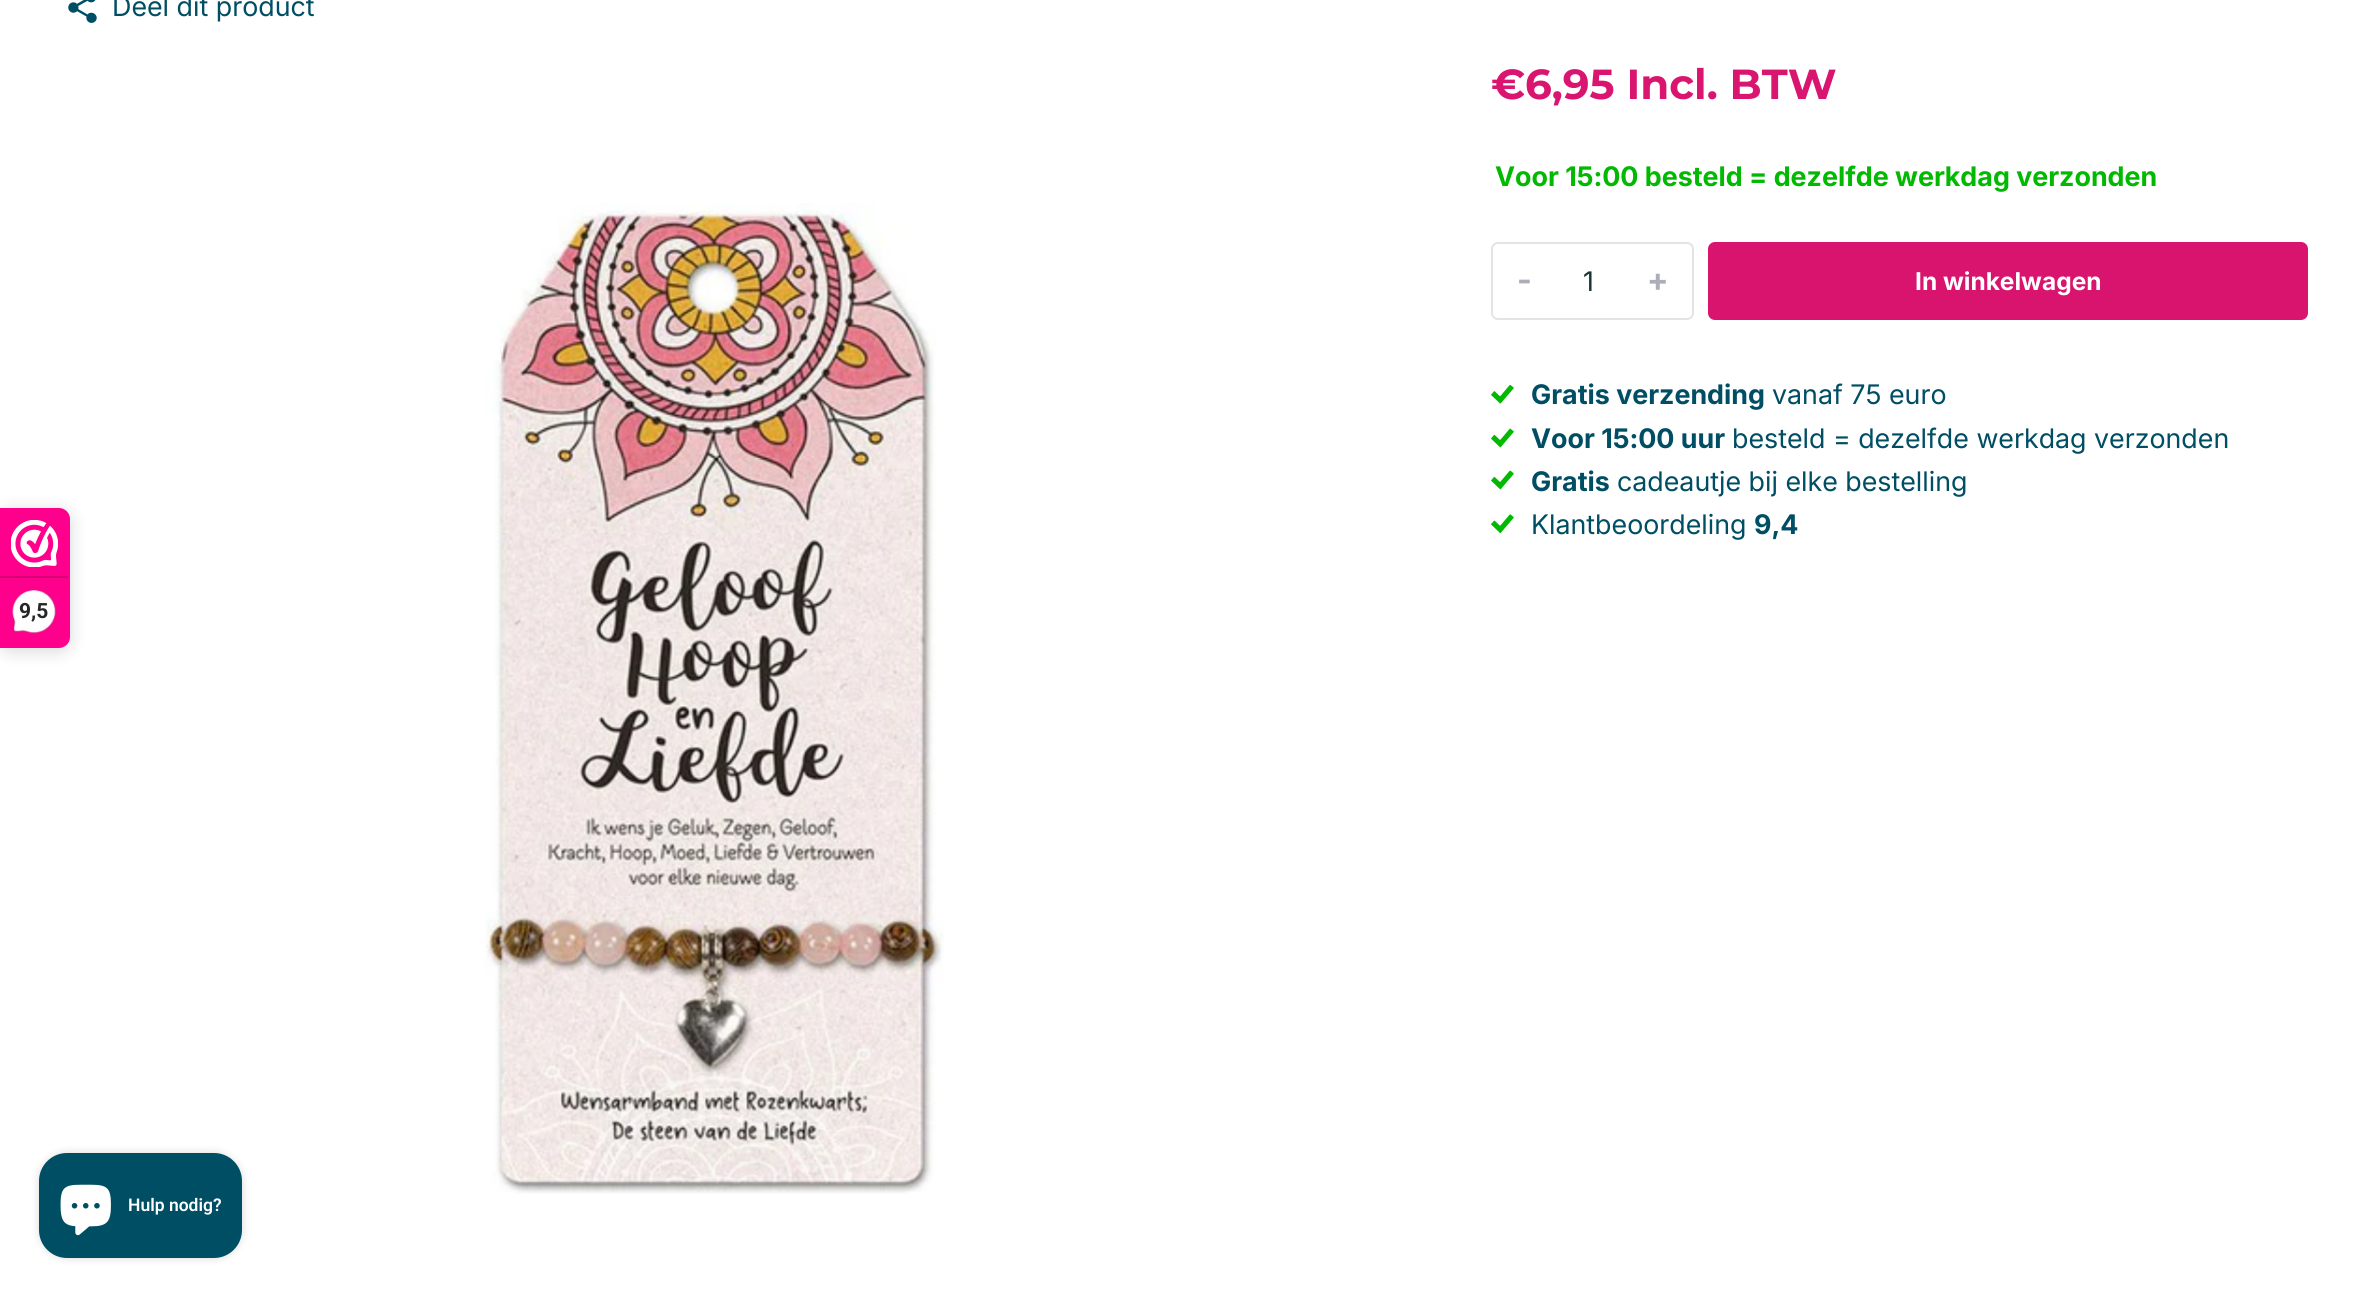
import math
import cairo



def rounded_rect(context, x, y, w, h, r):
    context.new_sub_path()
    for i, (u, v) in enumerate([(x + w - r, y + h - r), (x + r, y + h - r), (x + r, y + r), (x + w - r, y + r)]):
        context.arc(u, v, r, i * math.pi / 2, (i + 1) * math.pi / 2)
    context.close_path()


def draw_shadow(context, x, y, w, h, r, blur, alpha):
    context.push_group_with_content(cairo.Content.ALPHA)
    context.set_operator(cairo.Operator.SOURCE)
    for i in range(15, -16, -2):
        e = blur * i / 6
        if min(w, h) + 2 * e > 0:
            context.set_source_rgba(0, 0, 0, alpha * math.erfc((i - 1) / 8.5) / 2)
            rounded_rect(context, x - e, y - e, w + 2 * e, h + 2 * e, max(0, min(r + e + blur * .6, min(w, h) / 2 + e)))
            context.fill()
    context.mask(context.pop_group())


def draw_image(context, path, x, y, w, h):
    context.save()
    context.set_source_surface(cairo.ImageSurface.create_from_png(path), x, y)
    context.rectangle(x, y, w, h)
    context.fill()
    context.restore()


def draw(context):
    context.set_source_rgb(1, 1, 1)
    context.paint()
    draw_image(context, "images/1.png", 68, 0, 29, 23)
    draw_image(context, "images/2.png", 484, 203, 460, 991)
    rounded_rect(context, 1492, 243, 201, 76, 6)
    context.set_source_rgb(228 / 255, 228 / 255, 228 / 255)
    context.stroke()
    context.set_source_rgb(217 / 255, 20 / 255, 111 / 255)
    rounded_rect(context, 1708, 242, 600, 78, 7)
    context.fill()
    draw_image(context, "images/3.png", 1491, 384, 23, 20)
    draw_image(context, "images/4.png", 1491, 428, 23, 20)
    draw_image(context, "images/4.png", 1491, 470, 23, 20)
    draw_image(context, "images/5.png", 1491, 514, 23, 20)
    context.set_source_rgb(0, 0, 0)
    draw_shadow(context, 0, 511, 70, 140, 11, 9, 0.15)
    context.set_source_rgb(254 / 255, 0, 140 / 255)
    context.new_path()
    context.move_to(0, 508)
    context.line_to(59, 508)
    context.curve_to(65, 508, 70, 513, 70, 519)
    context.line_to(70, 637)
    context.curve_to(70, 643, 65, 648, 59, 648)
    context.line_to(0, 648)
    context.close_path()
    context.fill()
    draw_image(context, "images/6.png", 11, 520, 47, 47)
    context.set_source_rgb(216 / 255, 0, 119 / 255)
    context.rectangle(0, 576, 68, 2)
    context.fill()
    draw_image(context, "images/7.png", 12, 590, 44, 44)
    context.set_source_rgb(0, 0, 0)
    draw_shadow(context, 39, 1153, 203, 105, 28, 4.5, 0.15)
    context.set_source_rgb(0, 78 / 255, 100 / 255)
    rounded_rect(context, 39, 1153, 203, 105, 28)
    context.fill()
    draw_image(context, "images/8.png", 60, 1184, 51, 52)
    context.select_font_face("Inter")
    context.set_font_size(26.95)
    context.move_to(112, 16)
    context.show_text("Deel dit product")
    context.select_font_face("Montserrat", cairo.FontSlant.NORMAL, cairo.FontWeight.BOLD)
    context.set_font_size(42)
    context.set_source_rgb(217 / 255, 21 / 255, 111 / 255)
    context.move_to(1491, 99)
    context.show_text("€6,95 Incl. BTW")
    context.select_font_face("Inter", cairo.FontSlant.NORMAL, cairo.FontWeight.BOLD)
    context.set_font_size(26.95)
    context.set_source_rgb(0, 185 / 255, 0)
    context.move_to(1495, 186)
    context.show_text("Voor 15:00 besteld = dezelfde werkdag verzonden")
    context.select_font_face("Inter")
    context.set_source_rgb(26 / 255, 52 / 255, 55 / 255)
    context.move_to(1583, 291)
    context.show_text("1")
    context.select_font_face("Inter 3", cairo.FontSlant.NORMAL, cairo.FontWeight.BOLD)
    context.set_font_size(32)
    context.set_source_rgb(173 / 255, 173 / 255, 186 / 255)
    context.move_to(1517, 291)
    context.show_text("-")
    context.move_to(1647, 291)
    context.show_text("+")
    context.select_font_face("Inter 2", cairo.FontSlant.NORMAL, cairo.FontWeight.BOLD)
    context.set_font_size(24.5)
    context.set_source_rgb(1, 1, 1)
    context.move_to(1915, 290)
    context.show_text("In winkelwagen")
    context.select_font_face("Inter", cairo.FontSlant.NORMAL, cairo.FontWeight.BOLD)
    context.set_font_size(26.95)
    context.set_source_rgb(0, 78 / 255, 100 / 255)
    context.move_to(1531, 404)
    context.show_text("Gratis verzending")
    context.select_font_face("Inter")
    context.move_to(1772, 404)
    context.show_text("vanaf 75 euro")
    context.select_font_face("Inter", cairo.FontSlant.NORMAL, cairo.FontWeight.BOLD)
    context.move_to(1531, 448)
    context.show_text("Voor 15:00 uur")
    context.select_font_face("Inter")
    context.move_to(1732, 448)
    context.show_text("besteld = dezelfde werkdag verzonden")
    context.select_font_face("Inter", cairo.FontSlant.NORMAL, cairo.FontWeight.BOLD)
    context.move_to(1531, 491)
    context.show_text("Gratis")
    context.select_font_face("Inter")
    context.move_to(1617, 491)
    context.show_text("cadeautje bij elke bestelling")
    context.move_to(1531, 534)
    context.show_text("Klantbeoordeling")
    context.select_font_face("Inter", cairo.FontSlant.NORMAL, cairo.FontWeight.BOLD)
    context.move_to(1754, 534)
    context.show_text("9,4")
    context.select_font_face("Roboto", cairo.FontSlant.NORMAL, cairo.FontWeight.BOLD)
    context.set_font_size(21)
    context.set_source_rgb(39 / 255, 38 / 255, 38 / 255)
    context.move_to(19, 618)
    context.show_text("9,5")
    context.select_font_face("Roboto SemiBold")
    context.set_font_size(17.5)
    context.set_source_rgb(1, 1, 1)
    context.move_to(128, 1211)
    context.show_text("Hulp nodig?")


surface = cairo.ImageSurface(cairo.Format.RGB24, 2376, 1294)
context = cairo.Context(surface)
options = cairo.FontOptions()
options.set_hint_metrics(cairo.HintMetrics.OFF)
options.set_hint_style(cairo.HintStyle.NONE)
context.set_font_options(options)
context.set_miter_limit(4)
draw(context)
surface.write_to_png("out.png")
